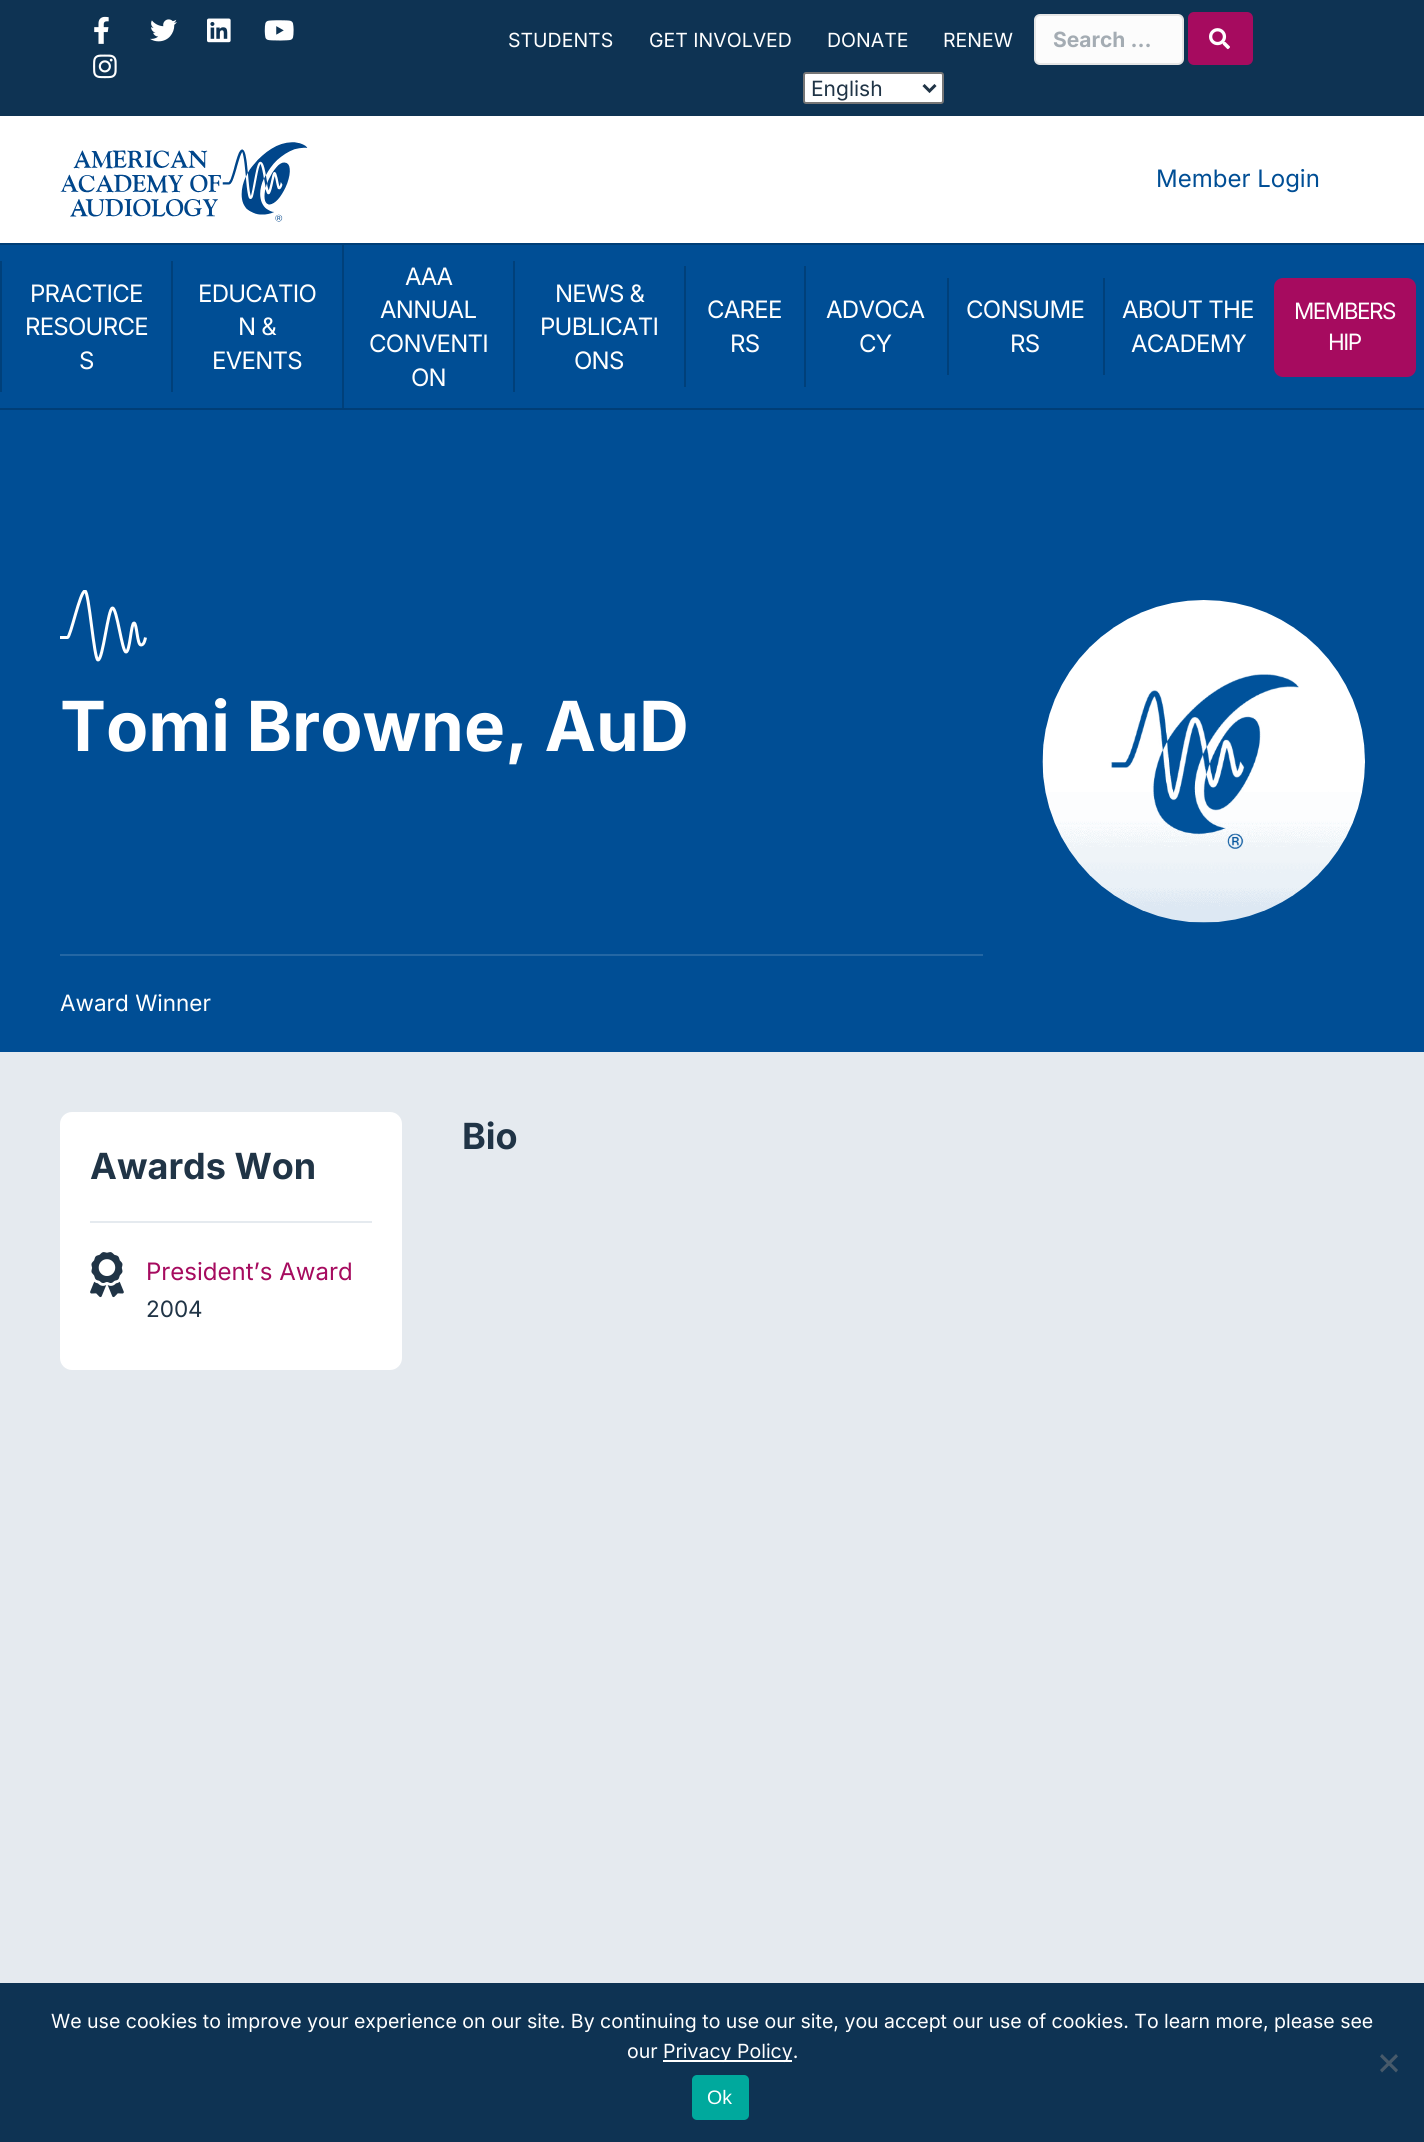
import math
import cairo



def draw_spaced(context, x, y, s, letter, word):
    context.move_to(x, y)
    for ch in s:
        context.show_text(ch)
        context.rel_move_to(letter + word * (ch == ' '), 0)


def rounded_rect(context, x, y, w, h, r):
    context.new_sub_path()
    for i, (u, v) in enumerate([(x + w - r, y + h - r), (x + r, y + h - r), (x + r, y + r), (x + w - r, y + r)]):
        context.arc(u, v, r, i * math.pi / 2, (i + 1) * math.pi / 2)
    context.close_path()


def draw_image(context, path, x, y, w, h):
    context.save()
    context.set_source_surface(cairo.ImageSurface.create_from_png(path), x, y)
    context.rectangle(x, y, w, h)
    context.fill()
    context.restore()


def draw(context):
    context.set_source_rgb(1, 1, 1)
    context.paint()
    context.set_source_rgb(14 / 255, 51 / 255, 83 / 255)
    context.rectangle(0, 0, 1424, 116)
    context.fill()
    draw_image(context, "images/1.png", 94, 16, 15, 28)
    draw_image(context, "images/2.png", 150, 19, 27, 23)
    draw_image(context, "images/3.png", 207, 18, 24, 25)
    draw_image(context, "images/4.png", 264, 20, 30, 21)
    draw_image(context, "images/5.png", 93, 54, 24, 25)
    context.set_source_rgb(252 / 255, 252 / 255, 252 / 255)
    rounded_rect(context, 1035, 15, 148, 49, 5)
    context.fill_preserve()
    context.set_source_rgb(230 / 255, 230 / 255, 230 / 255)
    context.stroke()
    context.set_source_rgb(166 / 255, 11 / 255, 95 / 255)
    rounded_rect(context, 1188, 12, 65, 53, 6)
    context.fill()
    draw_image(context, "images/6.png", 1209, 28, 21, 22)
    context.set_source_rgb(1, 1, 1)
    rounded_rect(context, 804, 73, 139, 30, 2)
    context.fill_preserve()
    context.set_source_rgb(118 / 255, 118 / 255, 118 / 255)
    context.stroke()
    context.new_path()
    context.move_to(923.5, 85)
    context.line_to(929.5, 91)
    context.line_to(935.5, 85)
    context.set_source_rgb(32 / 255, 52 / 255, 70 / 255)
    context.set_line_width(3)
    context.stroke()
    draw_image(context, "images/7.png", 60, 142, 248, 80)
    context.set_source_rgb(0, 78 / 255, 149 / 255)
    context.rectangle(0, 245, 1424, 163)
    context.fill()
    context.set_source_rgb(0, 62 / 255, 119 / 255)
    context.rectangle(0, 243, 1424, 2)
    context.fill()
    context.rectangle(0, 408, 1424, 2)
    context.fill()
    context.set_source_rgb(0, 64 / 255, 122 / 255)
    context.rectangle(0, 261, 2, 131)
    context.fill()
    context.rectangle(171, 261, 2, 131)
    context.fill()
    context.rectangle(342, 245, 2, 163)
    context.fill()
    context.rectangle(513, 261, 2, 131)
    context.fill()
    context.rectangle(684, 266, 2, 121)
    context.fill()
    context.rectangle(804, 266, 2, 121)
    context.fill()
    context.rectangle(947, 278, 2, 97)
    context.fill()
    context.rectangle(1103, 278, 2, 97)
    context.fill()
    context.set_source_rgb(166 / 255, 11 / 255, 95 / 255)
    rounded_rect(context, 1274, 278, 142, 99, 9)
    context.fill()
    context.set_source_rgb(229 / 255, 234 / 255, 239 / 255)
    context.rectangle(0, 1052, 1424, 931)
    context.fill()
    context.set_source_rgb(0, 78 / 255, 149 / 255)
    context.rectangle(0, 410, 1424, 642)
    context.fill()
    context.save()
    context.rectangle(60, 590, 87, 72)
    context.clip()
    context.new_path()
    context.move_to(60, 637.5)
    context.line_to(67.5, 637.5)
    context.curve_to(70.5, 637.5, 80, 591, 85, 591)
    context.curve_to(89, 591, 94, 660, 98, 660)
    context.curve_to(103, 660, 108, 608, 112.5, 608)
    context.curve_to(117, 608, 122, 652, 126, 652)
    context.curve_to(130, 652, 131, 623, 134, 623)
    context.curve_to(137, 623, 137, 645, 141, 645)
    context.curve_to(144, 645, 145, 640, 145.5, 637.5)
    context.set_source_rgb(1, 1, 1)
    context.stroke()
    context.restore()
    context.set_source_rgb(36 / 255, 103 / 255, 164 / 255)
    context.rectangle(60, 954, 923, 2)
    context.fill()
    draw_image(context, "images/8.png", 1042, 600, 323, 323)
    context.set_source_rgb(1, 1, 1)
    rounded_rect(context, 60, 1112, 342, 258, 12)
    context.fill()
    context.set_source_rgb(229 / 255, 234 / 255, 239 / 255)
    context.rectangle(90, 1221, 282, 2)
    context.fill()
    draw_image(context, "images/9.png", 90, 1252, 34, 46)
    context.set_source_rgb(14 / 255, 51 / 255, 83 / 255)
    context.rectangle(0, 1983, 1424, 159)
    context.fill()
    context.set_source_rgb(1, 1, 1)
    context.rectangle(663, 2060, 129, 2)
    context.fill()
    context.set_source_rgb(71 / 255, 90 / 255, 106 / 255)
    context.new_path()
    context.move_to(1396, 2054)
    context.line_to(1398, 2056.5)
    context.line_to(1382, 2072.5)
    context.line_to(1380, 2070)
    context.close_path()
    context.fill()
    context.new_path()
    context.move_to(1380, 2056.5)
    context.line_to(1382, 2054)
    context.line_to(1398, 2070)
    context.line_to(1396, 2072.5)
    context.close_path()
    context.fill()
    context.set_source_rgb(0, 169 / 255, 157 / 255)
    rounded_rect(context, 692, 2075, 57, 45, 5)
    context.fill()
    context.select_font_face("Inter")
    context.set_font_size(19.5)
    context.set_source_rgb(1, 1, 1)
    context.move_to(508, 47)
    context.show_text("STUDENTS")
    context.move_to(649, 47)
    context.show_text("GET INVOLVED")
    context.move_to(827, 47)
    context.show_text("DONATE")
    context.move_to(943, 47)
    context.show_text("RENEW")
    context.select_font_face("Inter", cairo.FontSlant.NORMAL, cairo.FontWeight.BOLD)
    context.set_font_size(21)
    context.set_source_rgb(164 / 255, 172 / 255, 179 / 255)
    context.move_to(1053, 47)
    context.show_text("Search …")
    context.select_font_face("Inter")
    context.set_source_rgb(32 / 255, 52 / 255, 70 / 255)
    context.move_to(811, 96)
    context.show_text("English")
    context.set_font_size(24)
    context.set_source_rgb(0, 78 / 255, 149 / 255)
    context.move_to(1156, 187)
    context.show_text("Member Login")
    context.set_source_rgb(1, 1, 1)
    draw_spaced(context, 30, 302, "PRACTICE", -0.75, 0)
    draw_spaced(context, 25, 335, "RESOURCE", -0.75, 0)
    draw_spaced(context, 79, 369, "S", -0.75, 0)
    draw_spaced(context, 198, 302, "EDUCATIO", -0.75, 0)
    draw_spaced(context, 238, 335, "N &", -0.75, 0)
    draw_spaced(context, 212, 369, "EVENTS", -0.75, 0)
    draw_spaced(context, 405, 285, "AAA", -0.75, 0)
    draw_spaced(context, 380, 318, "ANNUAL", -0.75, 0)
    draw_spaced(context, 369, 352, "CONVENTI", -0.75, 0)
    draw_spaced(context, 411, 386, "ON", -0.75, 0)
    draw_spaced(context, 555, 302, "NEWS &", -0.75, 0)
    draw_spaced(context, 540, 335, "PUBLICATI", -0.75, 0)
    draw_spaced(context, 574, 369, "ONS", -0.75, 0)
    draw_spaced(context, 707, 318, "CAREE", -0.75, 0)
    draw_spaced(context, 730, 352, "RS", -0.75, 0)
    draw_spaced(context, 826, 318, "ADVOCA", -0.75, 0)
    draw_spaced(context, 859, 352, "CY", -0.75, 0)
    draw_spaced(context, 966, 318, "CONSUME", -0.75, 0)
    draw_spaced(context, 1010, 352, "RS", -0.75, 0)
    draw_spaced(context, 1122, 318, "ABOUT THE", -0.75, 0)
    draw_spaced(context, 1131, 352, "ACADEMY", -0.75, 0)
    context.set_font_size(22.5)
    draw_spaced(context, 1294, 319, "MEMBERS", -1.5, 0)
    draw_spaced(context, 1328, 350, "HIP", -1.5, 0)
    context.select_font_face("Inter", cairo.FontSlant.NORMAL, cairo.FontWeight.BOLD)
    context.set_font_size(69)
    context.move_to(60, 751)
    context.show_text("Tomi Browne, AuD")
    context.select_font_face("Inter")
    context.set_font_size(22.5)
    context.move_to(60, 1011)
    context.show_text("Award Winner")
    context.select_font_face("Inter", cairo.FontSlant.NORMAL, cairo.FontWeight.BOLD)
    context.set_font_size(36)
    context.set_source_rgb(32 / 255, 52 / 255, 70 / 255)
    context.move_to(462, 1149)
    context.show_text("Bio")
    context.move_to(90, 1179)
    context.show_text("Awards Won")
    context.select_font_face("Inter")
    context.set_font_size(24)
    context.set_source_rgb(166 / 255, 11 / 255, 95 / 255)
    context.move_to(146, 1280)
    context.show_text("President’s Award")
    context.set_font_size(22.5)
    context.set_source_rgb(32 / 255, 52 / 255, 70 / 255)
    context.move_to(146, 1317)
    context.show_text("2004")
    context.set_font_size(19.5)
    context.set_source_rgb(1, 1, 1)
    context.move_to(51, 2028)
    context.show_text("We use cookies to improve your experience on our site. By continuing to use our site, you accept our use of cookies. To learn more, please see")
    context.move_to(627, 2058)
    context.show_text("our")
    context.move_to(663, 2058)
    context.show_text("Privacy Policy.")
    context.select_font_face("Liberation Sans")
    context.move_to(707, 2104)
    context.show_text("Ok")


surface = cairo.ImageSurface(cairo.Format.RGB24, 1424, 2142)
context = cairo.Context(surface)
options = cairo.FontOptions()
options.set_hint_metrics(cairo.HintMetrics.OFF)
options.set_hint_style(cairo.HintStyle.NONE)
context.set_font_options(options)
context.set_miter_limit(4)
draw(context)
surface.write_to_png("out.png")
